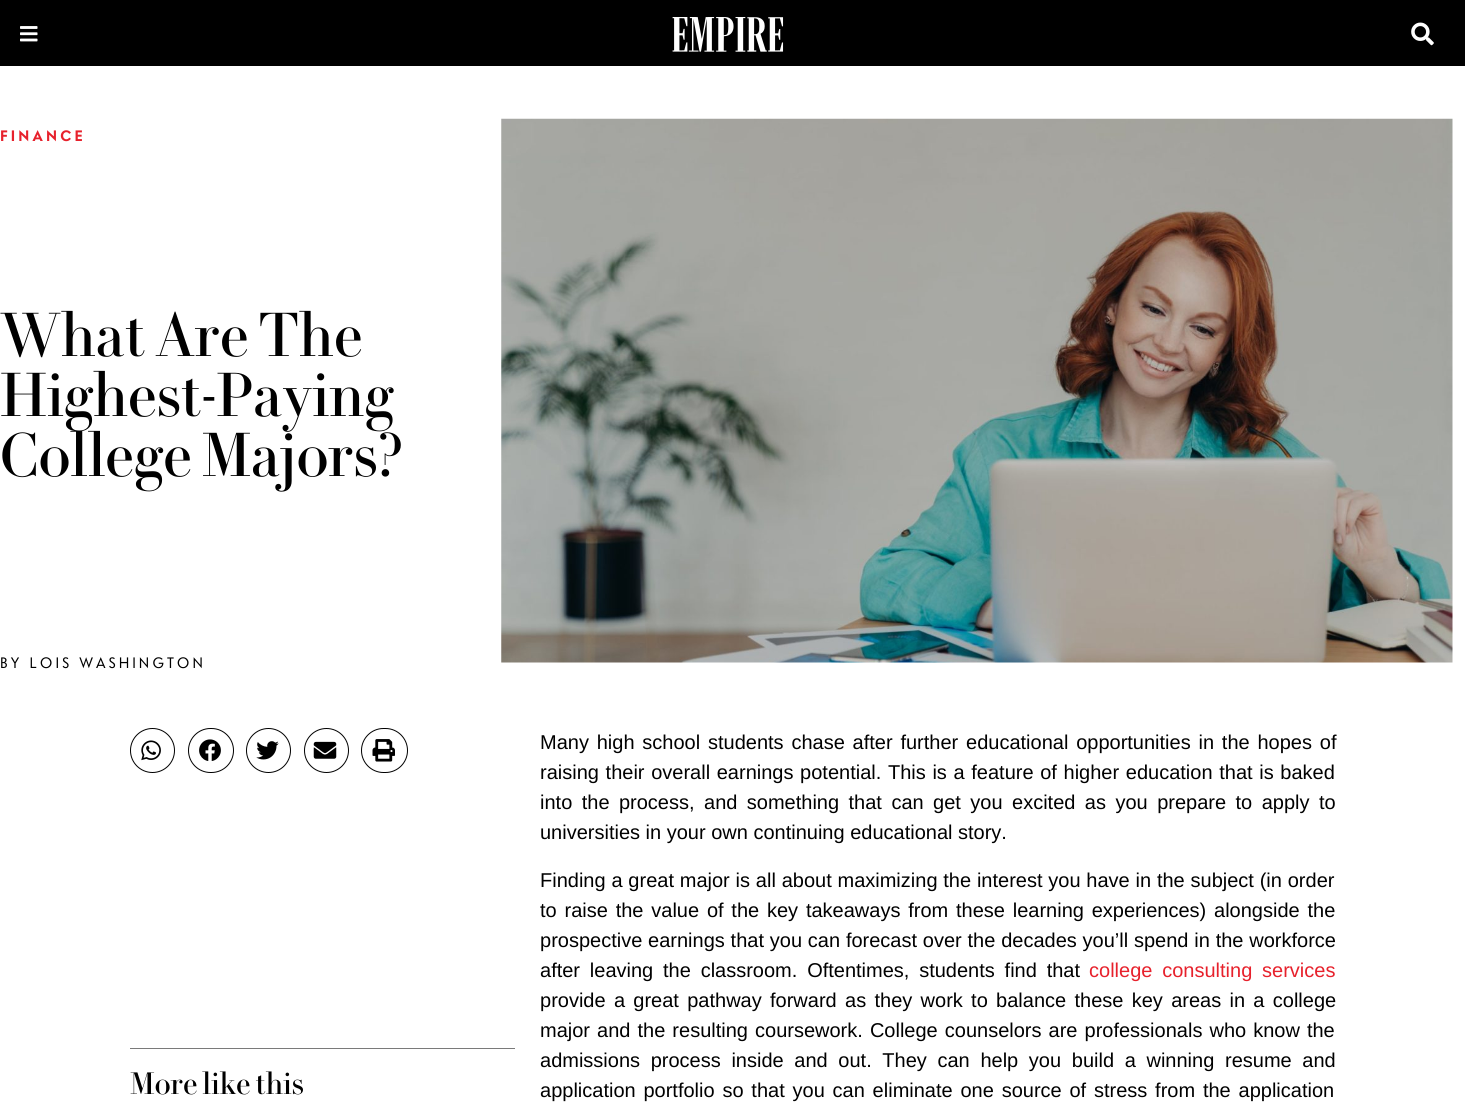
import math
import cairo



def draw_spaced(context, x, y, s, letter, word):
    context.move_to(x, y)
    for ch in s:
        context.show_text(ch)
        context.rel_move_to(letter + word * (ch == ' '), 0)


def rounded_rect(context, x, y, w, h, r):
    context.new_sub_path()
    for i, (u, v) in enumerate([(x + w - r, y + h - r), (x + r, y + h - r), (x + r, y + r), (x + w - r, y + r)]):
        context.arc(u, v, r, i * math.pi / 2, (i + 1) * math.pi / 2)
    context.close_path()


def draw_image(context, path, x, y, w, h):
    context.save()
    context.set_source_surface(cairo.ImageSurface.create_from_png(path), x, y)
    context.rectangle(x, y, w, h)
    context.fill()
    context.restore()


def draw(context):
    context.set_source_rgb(1, 1, 1)
    context.paint()
    context.set_source_rgb(0, 0, 0)
    context.rectangle(0, 0, 1465, 66)
    context.fill()
    draw_image(context, "images/1.png", 20, 26, 18, 16)
    draw_image(context, "images/2.png", 672, 17, 112, 35)
    draw_image(context, "images/3.png", 1411, 22, 23, 24)
    draw_image(context, "images/4.png", 501, 118, 952, 545)
    context.arc(152.5, 750.5, 22, 0, 2 * math.pi)
    context.set_line_width(1)
    context.stroke()
    draw_image(context, "images/5.png", 141, 740, 20, 21)
    rounded_rect(context, 188.5, 728.5, 45, 44, 22)
    context.stroke()
    draw_image(context, "images/6.png", 199, 739, 22, 22)
    context.arc(268.5, 750.5, 22, 0, 2 * math.pi)
    context.stroke()
    draw_image(context, "images/7.png", 256, 741, 23, 19)
    context.arc(326.5, 750.5, 22, 0, 2 * math.pi)
    context.stroke()
    draw_image(context, "images/8.png", 313, 741, 24, 18)
    rounded_rect(context, 361.5, 728.5, 46, 44, 22)
    context.stroke()
    draw_image(context, "images/9.png", 372, 739, 23, 23)
    context.set_source_rgb(122 / 255, 122 / 255, 122 / 255)
    context.rectangle(130, 1048, 385, 1)
    context.fill()
    context.select_font_face("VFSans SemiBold")
    context.set_font_size(15)
    context.set_source_rgb(231 / 255, 33 / 255, 44 / 255)
    draw_spaced(context, 0, 141, "FINANCE", 3, 0)
    context.select_font_face("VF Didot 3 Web")
    context.set_font_size(60)
    context.set_source_rgb(0, 0, 0)
    context.move_to(0, 356)
    context.show_text("What Are The")
    context.move_to(0, 416)
    context.show_text("Highest-Paying")
    context.move_to(0, 476)
    context.show_text("College Majors?")
    context.select_font_face("VFSans")
    context.set_font_size(15)
    draw_spaced(context, 0, 668, "BY LOIS WASHINGTON", 3.1, 0)
    context.select_font_face("VF Didot 3 Web")
    context.set_font_size(30)
    context.move_to(130, 1094)
    context.show_text("More like this")
    context.select_font_face("Liberation Sans")
    context.set_font_size(20)
    draw_spaced(context, 540, 749, "Many high school students chase after further educational opportunities in the hopes of", 0, 2.25)
    draw_spaced(context, 540, 779, "raising their overall earnings potential. This is a feature of higher education that is baked", 0, 1.1)
    draw_spaced(context, 540, 809, "into the process, and something that can get you excited as you prepare to apply to", 0, 3.9)
    context.move_to(540, 839)
    context.show_text("universities in your own continuing educational story.")
    draw_spaced(context, 540, 887, "Finding a great major is all about maximizing the interest you have in the subject (in order", 0, 0.25)
    draw_spaced(context, 540, 917, "to raise the value of the key takeaways from these learning experiences) alongside the", 0, 2.25)
    draw_spaced(context, 540, 947, "prospective earnings that you can forecast over the decades you’ll spend in the workforce", 0, 0.25)
    draw_spaced(context, 540, 977, "after leaving the classroom. Oftentimes, students find that", 0, 4.25)
    context.set_source_rgb(231 / 255, 33 / 255, 44 / 255)
    draw_spaced(context, 1089, 977, "college consulting services", 0, 4.25)
    context.set_source_rgb(0, 0, 0)
    draw_spaced(context, 540, 1007, "provide a great pathway forward as they work to balance these key areas in a college", 0, 2.75)
    draw_spaced(context, 540, 1037, "major and the resulting coursework. College counselors are professionals who know the", 0, 1.5)
    draw_spaced(context, 540, 1067, "admissions process inside and out. They can help you build a winning resume and", 0, 5.1)
    draw_spaced(context, 540, 1097, "application portfolio so that you can eliminate one source of stress from the application", 0, 2.25)


surface = cairo.ImageSurface(cairo.Format.RGB24, 1465, 1113)
context = cairo.Context(surface)
options = cairo.FontOptions()
options.set_hint_metrics(cairo.HintMetrics.OFF)
options.set_hint_style(cairo.HintStyle.NONE)
context.set_font_options(options)
context.set_miter_limit(4)
draw(context)
surface.write_to_png("out.png")
